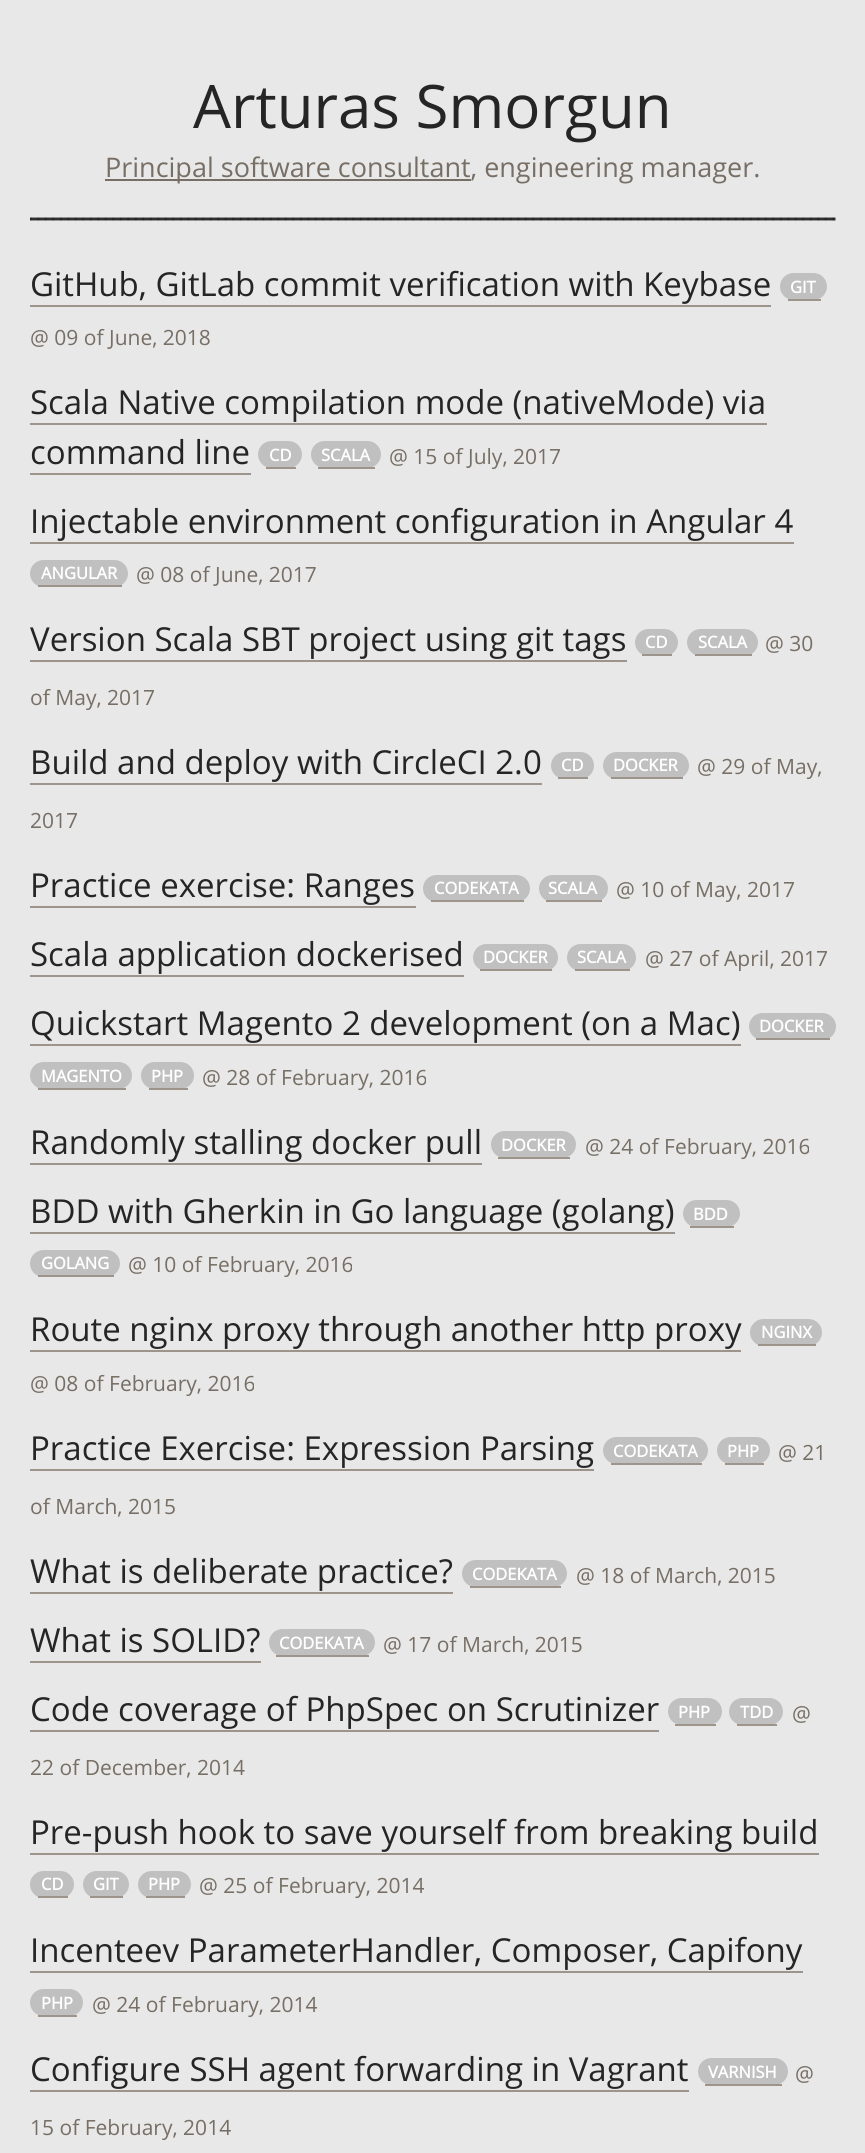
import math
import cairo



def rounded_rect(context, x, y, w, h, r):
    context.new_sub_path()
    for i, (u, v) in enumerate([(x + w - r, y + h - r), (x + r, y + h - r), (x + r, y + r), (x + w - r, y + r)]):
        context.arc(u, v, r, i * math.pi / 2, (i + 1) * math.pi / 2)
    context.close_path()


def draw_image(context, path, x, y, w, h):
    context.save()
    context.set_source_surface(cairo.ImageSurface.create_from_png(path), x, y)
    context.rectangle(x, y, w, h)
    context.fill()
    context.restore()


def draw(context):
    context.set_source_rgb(232 / 255, 232 / 255, 232 / 255)
    context.paint()
    context.set_source_rgb(119 / 255, 111 / 255, 101 / 255)
    context.rectangle(105, 179, 366, 2)
    context.fill()
    draw_image(context, "images/1.png", 30, 217, 806, 4)
    context.set_source_rgb(157 / 255, 149 / 255, 139 / 255)
    context.rectangle(30, 305, 741, 2)
    context.fill()
    context.set_source_rgb(192 / 255, 192 / 255, 192 / 255)
    rounded_rect(context, 780, 273, 47, 27, 13.5)
    context.fill()
    context.set_source_rgb(157 / 255, 149 / 255, 139 / 255)
    context.rectangle(788, 299, 33, 2)
    context.fill()
    context.rectangle(30, 423, 737, 2)
    context.fill()
    context.rectangle(30, 473, 221, 2)
    context.fill()
    context.set_source_rgb(192 / 255, 192 / 255, 192 / 255)
    rounded_rect(context, 258, 441, 44, 27, 13.5)
    context.fill()
    context.set_source_rgb(157 / 255, 149 / 255, 139 / 255)
    context.rectangle(266, 467, 30, 2)
    context.fill()
    context.set_source_rgb(192 / 255, 192 / 255, 192 / 255)
    rounded_rect(context, 311, 441, 70, 27, 13.5)
    context.fill()
    context.set_source_rgb(157 / 255, 149 / 255, 139 / 255)
    context.rectangle(318, 467, 57, 2)
    context.fill()
    context.rectangle(30, 542, 764, 2)
    context.fill()
    context.set_source_rgb(192 / 255, 192 / 255, 192 / 255)
    rounded_rect(context, 30, 560, 98, 27, 13.5)
    context.fill()
    context.set_source_rgb(157 / 255, 149 / 255, 139 / 255)
    context.rectangle(38, 585, 84, 2)
    context.fill()
    context.rectangle(30, 660, 597, 2)
    context.fill()
    context.set_source_rgb(192 / 255, 192 / 255, 192 / 255)
    rounded_rect(context, 635, 629, 43, 27, 13.5)
    context.fill()
    context.set_source_rgb(157 / 255, 149 / 255, 139 / 255)
    context.rectangle(642, 654, 30, 2)
    context.fill()
    context.set_source_rgb(192 / 255, 192 / 255, 192 / 255)
    rounded_rect(context, 687, 629, 71, 27, 13.5)
    context.fill()
    context.set_source_rgb(157 / 255, 149 / 255, 139 / 255)
    context.rectangle(695, 654, 57, 2)
    context.fill()
    context.rectangle(30, 783, 512, 2)
    context.fill()
    context.set_source_rgb(192 / 255, 192 / 255, 192 / 255)
    rounded_rect(context, 551, 752, 43, 27, 13.5)
    context.fill()
    context.set_source_rgb(157 / 255, 149 / 255, 139 / 255)
    context.rectangle(558, 777, 30, 2)
    context.fill()
    context.set_source_rgb(192 / 255, 192 / 255, 192 / 255)
    rounded_rect(context, 603, 752, 86, 27, 13.5)
    context.fill()
    context.set_source_rgb(157 / 255, 149 / 255, 139 / 255)
    context.rectangle(611, 777, 72, 2)
    context.fill()
    context.rectangle(30, 906, 386, 2)
    context.fill()
    context.set_source_rgb(192 / 255, 192 / 255, 192 / 255)
    rounded_rect(context, 423, 875, 107, 27, 13.5)
    context.fill()
    context.set_source_rgb(157 / 255, 149 / 255, 139 / 255)
    context.rectangle(431, 900, 93, 2)
    context.fill()
    context.set_source_rgb(192 / 255, 192 / 255, 192 / 255)
    rounded_rect(context, 539, 875, 69, 27, 13.5)
    context.fill()
    context.set_source_rgb(157 / 255, 149 / 255, 139 / 255)
    context.rectangle(546, 900, 56, 2)
    context.fill()
    context.rectangle(30, 975, 434, 2)
    context.fill()
    context.set_source_rgb(192 / 255, 192 / 255, 192 / 255)
    rounded_rect(context, 473, 944, 85, 27, 13.5)
    context.fill()
    context.set_source_rgb(157 / 255, 149 / 255, 139 / 255)
    context.rectangle(480, 969, 72, 2)
    context.fill()
    context.set_source_rgb(192 / 255, 192 / 255, 192 / 255)
    rounded_rect(context, 567, 944, 69, 27, 13.5)
    context.fill()
    context.set_source_rgb(157 / 255, 149 / 255, 139 / 255)
    context.rectangle(575, 969, 55, 2)
    context.fill()
    context.rectangle(30, 1044, 711, 2)
    context.fill()
    context.set_source_rgb(192 / 255, 192 / 255, 192 / 255)
    rounded_rect(context, 749, 1013, 87, 27, 13.5)
    context.fill()
    context.set_source_rgb(157 / 255, 149 / 255, 139 / 255)
    context.rectangle(756, 1038, 74, 2)
    context.fill()
    context.set_source_rgb(192 / 255, 192 / 255, 192 / 255)
    rounded_rect(context, 30, 1062, 102, 27, 13.5)
    context.fill()
    context.set_source_rgb(157 / 255, 149 / 255, 139 / 255)
    context.rectangle(38, 1088, 88, 2)
    context.fill()
    context.set_source_rgb(192 / 255, 192 / 255, 192 / 255)
    rounded_rect(context, 141, 1062, 53, 27, 13.5)
    context.fill()
    context.set_source_rgb(157 / 255, 149 / 255, 139 / 255)
    context.rectangle(149, 1088, 39, 2)
    context.fill()
    context.rectangle(30, 1163, 452, 2)
    context.fill()
    context.set_source_rgb(192 / 255, 192 / 255, 192 / 255)
    rounded_rect(context, 491, 1131, 85, 27, 13.5)
    context.fill()
    context.set_source_rgb(157 / 255, 149 / 255, 139 / 255)
    context.rectangle(498, 1157, 72, 2)
    context.fill()
    context.rectangle(30, 1232, 645, 2)
    context.fill()
    context.set_source_rgb(192 / 255, 192 / 255, 192 / 255)
    rounded_rect(context, 683, 1200, 57, 27, 13.5)
    context.fill()
    context.set_source_rgb(157 / 255, 149 / 255, 139 / 255)
    context.rectangle(690, 1226, 44, 2)
    context.fill()
    context.set_source_rgb(192 / 255, 192 / 255, 192 / 255)
    rounded_rect(context, 30, 1250, 90, 27, 13.5)
    context.fill()
    context.set_source_rgb(157 / 255, 149 / 255, 139 / 255)
    context.rectangle(38, 1275, 76, 2)
    context.fill()
    context.rectangle(30, 1350, 711, 2)
    context.fill()
    context.set_source_rgb(192 / 255, 192 / 255, 192 / 255)
    rounded_rect(context, 750, 1319, 72, 27, 13.5)
    context.fill()
    context.set_source_rgb(157 / 255, 149 / 255, 139 / 255)
    context.rectangle(758, 1344, 58, 2)
    context.fill()
    context.rectangle(30, 1469, 564, 2)
    context.fill()
    context.set_source_rgb(192 / 255, 192 / 255, 192 / 255)
    rounded_rect(context, 603, 1437, 105, 27, 13.5)
    context.fill()
    context.set_source_rgb(157 / 255, 149 / 255, 139 / 255)
    context.rectangle(611, 1463, 91, 2)
    context.fill()
    context.set_source_rgb(192 / 255, 192 / 255, 192 / 255)
    rounded_rect(context, 717, 1437, 53, 27, 13.5)
    context.fill()
    context.set_source_rgb(157 / 255, 149 / 255, 139 / 255)
    context.rectangle(725, 1463, 39, 2)
    context.fill()
    context.rectangle(30, 1592, 423, 2)
    context.fill()
    context.set_source_rgb(192 / 255, 192 / 255, 192 / 255)
    rounded_rect(context, 462, 1560, 105, 27, 13.5)
    context.fill()
    context.set_source_rgb(157 / 255, 149 / 255, 139 / 255)
    context.rectangle(470, 1586, 91, 2)
    context.fill()
    context.rectangle(30, 1661, 231, 2)
    context.fill()
    context.set_source_rgb(192 / 255, 192 / 255, 192 / 255)
    rounded_rect(context, 269, 1629, 106, 27, 13.5)
    context.fill()
    context.set_source_rgb(157 / 255, 149 / 255, 139 / 255)
    context.rectangle(276, 1655, 93, 2)
    context.fill()
    context.rectangle(30, 1730, 629, 2)
    context.fill()
    context.set_source_rgb(192 / 255, 192 / 255, 192 / 255)
    rounded_rect(context, 668, 1698, 54, 27, 13.5)
    context.fill()
    context.set_source_rgb(157 / 255, 149 / 255, 139 / 255)
    context.rectangle(675, 1724, 41, 2)
    context.fill()
    context.set_source_rgb(192 / 255, 192 / 255, 192 / 255)
    rounded_rect(context, 729, 1698, 54, 27, 13.5)
    context.fill()
    context.set_source_rgb(157 / 255, 149 / 255, 139 / 255)
    context.rectangle(737, 1724, 40, 2)
    context.fill()
    context.rectangle(30, 1853, 789, 2)
    context.fill()
    context.set_source_rgb(192 / 255, 192 / 255, 192 / 255)
    rounded_rect(context, 30, 1871, 44, 27, 13.5)
    context.fill()
    context.set_source_rgb(157 / 255, 149 / 255, 139 / 255)
    context.rectangle(38, 1896, 30, 2)
    context.fill()
    context.set_source_rgb(192 / 255, 192 / 255, 192 / 255)
    rounded_rect(context, 83, 1871, 46, 27, 13.5)
    context.fill()
    context.set_source_rgb(157 / 255, 149 / 255, 139 / 255)
    context.rectangle(90, 1896, 33, 2)
    context.fill()
    context.set_source_rgb(192 / 255, 192 / 255, 192 / 255)
    rounded_rect(context, 138, 1871, 53, 27, 13.5)
    context.fill()
    context.set_source_rgb(157 / 255, 149 / 255, 139 / 255)
    context.rectangle(146, 1896, 39, 2)
    context.fill()
    context.rectangle(30, 1971, 773, 2)
    context.fill()
    context.set_source_rgb(192 / 255, 192 / 255, 192 / 255)
    rounded_rect(context, 30, 1989, 53, 27, 13.5)
    context.fill()
    context.set_source_rgb(157 / 255, 149 / 255, 139 / 255)
    context.rectangle(38, 2015, 39, 2)
    context.fill()
    context.rectangle(30, 2090, 659, 2)
    context.fill()
    context.set_source_rgb(192 / 255, 192 / 255, 192 / 255)
    rounded_rect(context, 698, 2058, 90, 27, 13.5)
    context.fill()
    context.set_source_rgb(157 / 255, 149 / 255, 139 / 255)
    context.rectangle(705, 2084, 77, 2)
    context.fill()
    context.select_font_face("Open Sans")
    context.set_font_size(60)
    context.set_source_rgb(37 / 255, 37 / 255, 37 / 255)
    context.move_to(193, 128)
    context.show_text("Arturas Smorgun")
    context.set_font_size(27)
    context.set_source_rgb(119 / 255, 111 / 255, 101 / 255)
    context.move_to(105, 177)
    context.show_text("Principal software consultant, engineering manager.")
    context.set_font_size(33)
    context.set_source_rgb(37 / 255, 37 / 255, 37 / 255)
    context.move_to(30, 296)
    context.show_text("GitHub, GitLab commit verification with Keybase")
    context.select_font_face("Open Sans", cairo.FontSlant.NORMAL, cairo.FontWeight.BOLD)
    context.set_font_size(16.5)
    context.set_source_rgb(1, 1, 1)
    context.move_to(790, 293)
    context.show_text("GIT")
    context.select_font_face("Open Sans")
    context.set_font_size(21)
    context.set_source_rgb(119 / 255, 111 / 255, 101 / 255)
    context.move_to(30, 345)
    context.show_text("@ 09 of June, 2018")
    context.set_font_size(33)
    context.set_source_rgb(37 / 255, 37 / 255, 37 / 255)
    context.move_to(30, 414)
    context.show_text("Scala Native compilation mode (nativeMode) via")
    context.move_to(30, 464)
    context.show_text("command line")
    context.select_font_face("Open Sans", cairo.FontSlant.NORMAL, cairo.FontWeight.BOLD)
    context.set_font_size(16.5)
    context.set_source_rgb(1, 1, 1)
    context.move_to(269, 461)
    context.show_text("CD")
    context.move_to(321, 461)
    context.show_text("SCALA")
    context.select_font_face("Open Sans")
    context.set_font_size(21)
    context.set_source_rgb(119 / 255, 111 / 255, 101 / 255)
    context.move_to(389, 464)
    context.show_text("@ 15 of July, 2017")
    context.set_font_size(33)
    context.set_source_rgb(37 / 255, 37 / 255, 37 / 255)
    context.move_to(30, 533)
    context.show_text("Injectable environment configuration in Angular 4")
    context.select_font_face("Open Sans", cairo.FontSlant.NORMAL, cairo.FontWeight.BOLD)
    context.set_font_size(16.5)
    context.set_source_rgb(1, 1, 1)
    context.move_to(41, 579)
    context.show_text("ANGULAR")
    context.select_font_face("Open Sans")
    context.set_font_size(21)
    context.set_source_rgb(119 / 255, 111 / 255, 101 / 255)
    context.move_to(136, 582)
    context.show_text("@ 08 of June, 2017")
    context.set_font_size(33)
    context.set_source_rgb(37 / 255, 37 / 255, 37 / 255)
    context.move_to(30, 651)
    context.show_text("Version Scala SBT project using git tags")
    context.select_font_face("Open Sans", cairo.FontSlant.NORMAL, cairo.FontWeight.BOLD)
    context.set_font_size(16.5)
    context.set_source_rgb(1, 1, 1)
    context.move_to(645, 648)
    context.show_text("CD")
    context.move_to(698, 648)
    context.show_text("SCALA")
    context.select_font_face("Open Sans")
    context.set_font_size(21)
    context.set_source_rgb(119 / 255, 111 / 255, 101 / 255)
    context.move_to(765, 651)
    context.show_text("@ 30")
    context.move_to(30, 705)
    context.show_text("of May, 2017")
    context.set_font_size(33)
    context.set_source_rgb(37 / 255, 37 / 255, 37 / 255)
    context.move_to(30, 774)
    context.show_text("Build and deploy with CircleCI 2.0")
    context.select_font_face("Open Sans", cairo.FontSlant.NORMAL, cairo.FontWeight.BOLD)
    context.set_font_size(16.5)
    context.set_source_rgb(1, 1, 1)
    context.move_to(561, 771)
    context.show_text("CD")
    context.move_to(613, 771)
    context.show_text("DOCKER")
    context.select_font_face("Open Sans")
    context.set_font_size(21)
    context.set_source_rgb(119 / 255, 111 / 255, 101 / 255)
    context.move_to(697, 774)
    context.show_text("@ 29 of May,")
    context.move_to(30, 828)
    context.show_text("2017")
    context.set_font_size(33)
    context.set_source_rgb(37 / 255, 37 / 255, 37 / 255)
    context.move_to(30, 897)
    context.show_text("Practice exercise: Ranges")
    context.select_font_face("Open Sans", cairo.FontSlant.NORMAL, cairo.FontWeight.BOLD)
    context.set_font_size(16.5)
    context.set_source_rgb(1, 1, 1)
    context.move_to(434, 894)
    context.show_text("CODEKATA")
    context.move_to(548, 894)
    context.show_text("SCALA")
    context.select_font_face("Open Sans")
    context.set_font_size(21)
    context.set_source_rgb(119 / 255, 111 / 255, 101 / 255)
    context.move_to(616, 897)
    context.show_text("@ 10 of May, 2017")
    context.set_font_size(33)
    context.set_source_rgb(37 / 255, 37 / 255, 37 / 255)
    context.move_to(30, 966)
    context.show_text("Scala application dockerised")
    context.select_font_face("Open Sans", cairo.FontSlant.NORMAL, cairo.FontWeight.BOLD)
    context.set_font_size(16.5)
    context.set_source_rgb(1, 1, 1)
    context.move_to(483, 963)
    context.show_text("DOCKER")
    context.move_to(577, 963)
    context.show_text("SCALA")
    context.select_font_face("Open Sans")
    context.set_font_size(21)
    context.set_source_rgb(119 / 255, 111 / 255, 101 / 255)
    context.move_to(645, 966)
    context.show_text("@ 27 of April, 2017")
    context.set_font_size(33)
    context.set_source_rgb(37 / 255, 37 / 255, 37 / 255)
    context.move_to(30, 1035)
    context.show_text("Quickstart Magento 2 development (on a Mac)")
    context.select_font_face("Open Sans", cairo.FontSlant.NORMAL, cairo.FontWeight.BOLD)
    context.set_font_size(16.5)
    context.set_source_rgb(1, 1, 1)
    context.move_to(759, 1032)
    context.show_text("DOCKER")
    context.move_to(41, 1082)
    context.show_text("MAGENTO")
    context.move_to(151, 1082)
    context.show_text("PHP")
    context.select_font_face("Open Sans")
    context.set_font_size(21)
    context.set_source_rgb(119 / 255, 111 / 255, 101 / 255)
    context.move_to(202, 1085)
    context.show_text("@ 28 of February, 2016")
    context.set_font_size(33)
    context.set_source_rgb(37 / 255, 37 / 255, 37 / 255)
    context.move_to(30, 1154)
    context.show_text("Randomly stalling docker pull")
    context.select_font_face("Open Sans", cairo.FontSlant.NORMAL, cairo.FontWeight.BOLD)
    context.set_font_size(16.5)
    context.set_source_rgb(1, 1, 1)
    context.move_to(501, 1151)
    context.show_text("DOCKER")
    context.select_font_face("Open Sans")
    context.set_font_size(21)
    context.set_source_rgb(119 / 255, 111 / 255, 101 / 255)
    context.move_to(585, 1154)
    context.show_text("@ 24 of February, 2016")
    context.set_font_size(33)
    context.set_source_rgb(37 / 255, 37 / 255, 37 / 255)
    context.move_to(30, 1223)
    context.show_text("BDD with Gherkin in Go language (golang)")
    context.select_font_face("Open Sans", cairo.FontSlant.NORMAL, cairo.FontWeight.BOLD)
    context.set_font_size(16.5)
    context.set_source_rgb(1, 1, 1)
    context.move_to(693, 1220)
    context.show_text("BDD")
    context.move_to(41, 1269)
    context.show_text("GOLANG")
    context.select_font_face("Open Sans")
    context.set_font_size(21)
    context.set_source_rgb(119 / 255, 111 / 255, 101 / 255)
    context.move_to(128, 1272)
    context.show_text("@ 10 of February, 2016")
    context.set_font_size(33)
    context.set_source_rgb(37 / 255, 37 / 255, 37 / 255)
    context.move_to(30, 1341)
    context.show_text("Route nginx proxy through another http proxy")
    context.select_font_face("Open Sans", cairo.FontSlant.NORMAL, cairo.FontWeight.BOLD)
    context.set_font_size(16.5)
    context.set_source_rgb(1, 1, 1)
    context.move_to(761, 1338)
    context.show_text("NGINX")
    context.select_font_face("Open Sans")
    context.set_font_size(21)
    context.set_source_rgb(119 / 255, 111 / 255, 101 / 255)
    context.move_to(30, 1391)
    context.show_text("@ 08 of February, 2016")
    context.set_font_size(33)
    context.set_source_rgb(37 / 255, 37 / 255, 37 / 255)
    context.move_to(30, 1460)
    context.show_text("Practice Exercise: Expression Parsing")
    context.select_font_face("Open Sans", cairo.FontSlant.NORMAL, cairo.FontWeight.BOLD)
    context.set_font_size(16.5)
    context.set_source_rgb(1, 1, 1)
    context.move_to(613, 1457)
    context.show_text("CODEKATA")
    context.move_to(727, 1457)
    context.show_text("PHP")
    context.select_font_face("Open Sans")
    context.set_font_size(21)
    context.set_source_rgb(119 / 255, 111 / 255, 101 / 255)
    context.move_to(778, 1460)
    context.show_text("@ 21")
    context.move_to(30, 1514)
    context.show_text("of March, 2015")
    context.set_font_size(33)
    context.set_source_rgb(37 / 255, 37 / 255, 37 / 255)
    context.move_to(30, 1583)
    context.show_text("What is deliberate practice?")
    context.select_font_face("Open Sans", cairo.FontSlant.NORMAL, cairo.FontWeight.BOLD)
    context.set_font_size(16.5)
    context.set_source_rgb(1, 1, 1)
    context.move_to(472, 1580)
    context.show_text("CODEKATA")
    context.select_font_face("Open Sans")
    context.set_font_size(21)
    context.set_source_rgb(119 / 255, 111 / 255, 101 / 255)
    context.move_to(576, 1583)
    context.show_text("@ 18 of March, 2015")
    context.set_font_size(33)
    context.set_source_rgb(37 / 255, 37 / 255, 37 / 255)
    context.move_to(30, 1652)
    context.show_text("What is SOLID?")
    context.select_font_face("Open Sans", cairo.FontSlant.NORMAL, cairo.FontWeight.BOLD)
    context.set_font_size(16.5)
    context.set_source_rgb(1, 1, 1)
    context.move_to(279, 1649)
    context.show_text("CODEKATA")
    context.select_font_face("Open Sans")
    context.set_font_size(21)
    context.set_source_rgb(119 / 255, 111 / 255, 101 / 255)
    context.move_to(383, 1652)
    context.show_text("@ 17 of March, 2015")
    context.set_font_size(33)
    context.set_source_rgb(37 / 255, 37 / 255, 37 / 255)
    context.move_to(30, 1721)
    context.show_text("Code coverage of PhpSpec on Scrutinizer")
    context.select_font_face("Open Sans", cairo.FontSlant.NORMAL, cairo.FontWeight.BOLD)
    context.set_font_size(16.5)
    context.set_source_rgb(1, 1, 1)
    context.move_to(678, 1718)
    context.show_text("PHP")
    context.move_to(740, 1718)
    context.show_text("TDD")
    context.select_font_face("Open Sans")
    context.set_font_size(21)
    context.set_source_rgb(119 / 255, 111 / 255, 101 / 255)
    context.move_to(792, 1721)
    context.show_text("@")
    context.move_to(30, 1775)
    context.show_text("22 of December, 2014")
    context.set_font_size(33)
    context.set_source_rgb(37 / 255, 37 / 255, 37 / 255)
    context.move_to(30, 1844)
    context.show_text("Pre-push hook to save yourself from breaking build")
    context.select_font_face("Open Sans", cairo.FontSlant.NORMAL, cairo.FontWeight.BOLD)
    context.set_font_size(16.5)
    context.set_source_rgb(1, 1, 1)
    context.move_to(41, 1890)
    context.show_text("CD")
    context.move_to(93, 1890)
    context.show_text("GIT")
    context.move_to(148, 1890)
    context.show_text("PHP")
    context.select_font_face("Open Sans")
    context.set_font_size(21)
    context.set_source_rgb(119 / 255, 111 / 255, 101 / 255)
    context.move_to(199, 1893)
    context.show_text("@ 25 of February, 2014")
    context.set_font_size(33)
    context.set_source_rgb(37 / 255, 37 / 255, 37 / 255)
    context.move_to(30, 1962)
    context.show_text("Incenteev ParameterHandler, Composer, Capifony")
    context.select_font_face("Open Sans", cairo.FontSlant.NORMAL, cairo.FontWeight.BOLD)
    context.set_font_size(16.5)
    context.set_source_rgb(1, 1, 1)
    context.move_to(41, 2009)
    context.show_text("PHP")
    context.select_font_face("Open Sans")
    context.set_font_size(21)
    context.set_source_rgb(119 / 255, 111 / 255, 101 / 255)
    context.move_to(92, 2012)
    context.show_text("@ 24 of February, 2014")
    context.set_font_size(33)
    context.set_source_rgb(37 / 255, 37 / 255, 37 / 255)
    context.move_to(30, 2081)
    context.show_text("Configure SSH agent forwarding in Vagrant")
    context.select_font_face("Open Sans", cairo.FontSlant.NORMAL, cairo.FontWeight.BOLD)
    context.set_font_size(16.5)
    context.set_source_rgb(1, 1, 1)
    context.move_to(708, 2078)
    context.show_text("VARNISH")
    context.select_font_face("Open Sans")
    context.set_font_size(21)
    context.set_source_rgb(119 / 255, 111 / 255, 101 / 255)
    context.move_to(795, 2081)
    context.show_text("@")
    context.move_to(30, 2135)
    context.show_text("15 of February, 2014")


surface = cairo.ImageSurface(cairo.Format.RGB24, 865, 2153)
context = cairo.Context(surface)
options = cairo.FontOptions()
options.set_hint_metrics(cairo.HintMetrics.OFF)
options.set_hint_style(cairo.HintStyle.NONE)
context.set_font_options(options)
context.set_miter_limit(4)
draw(context)
surface.write_to_png("out.png")
